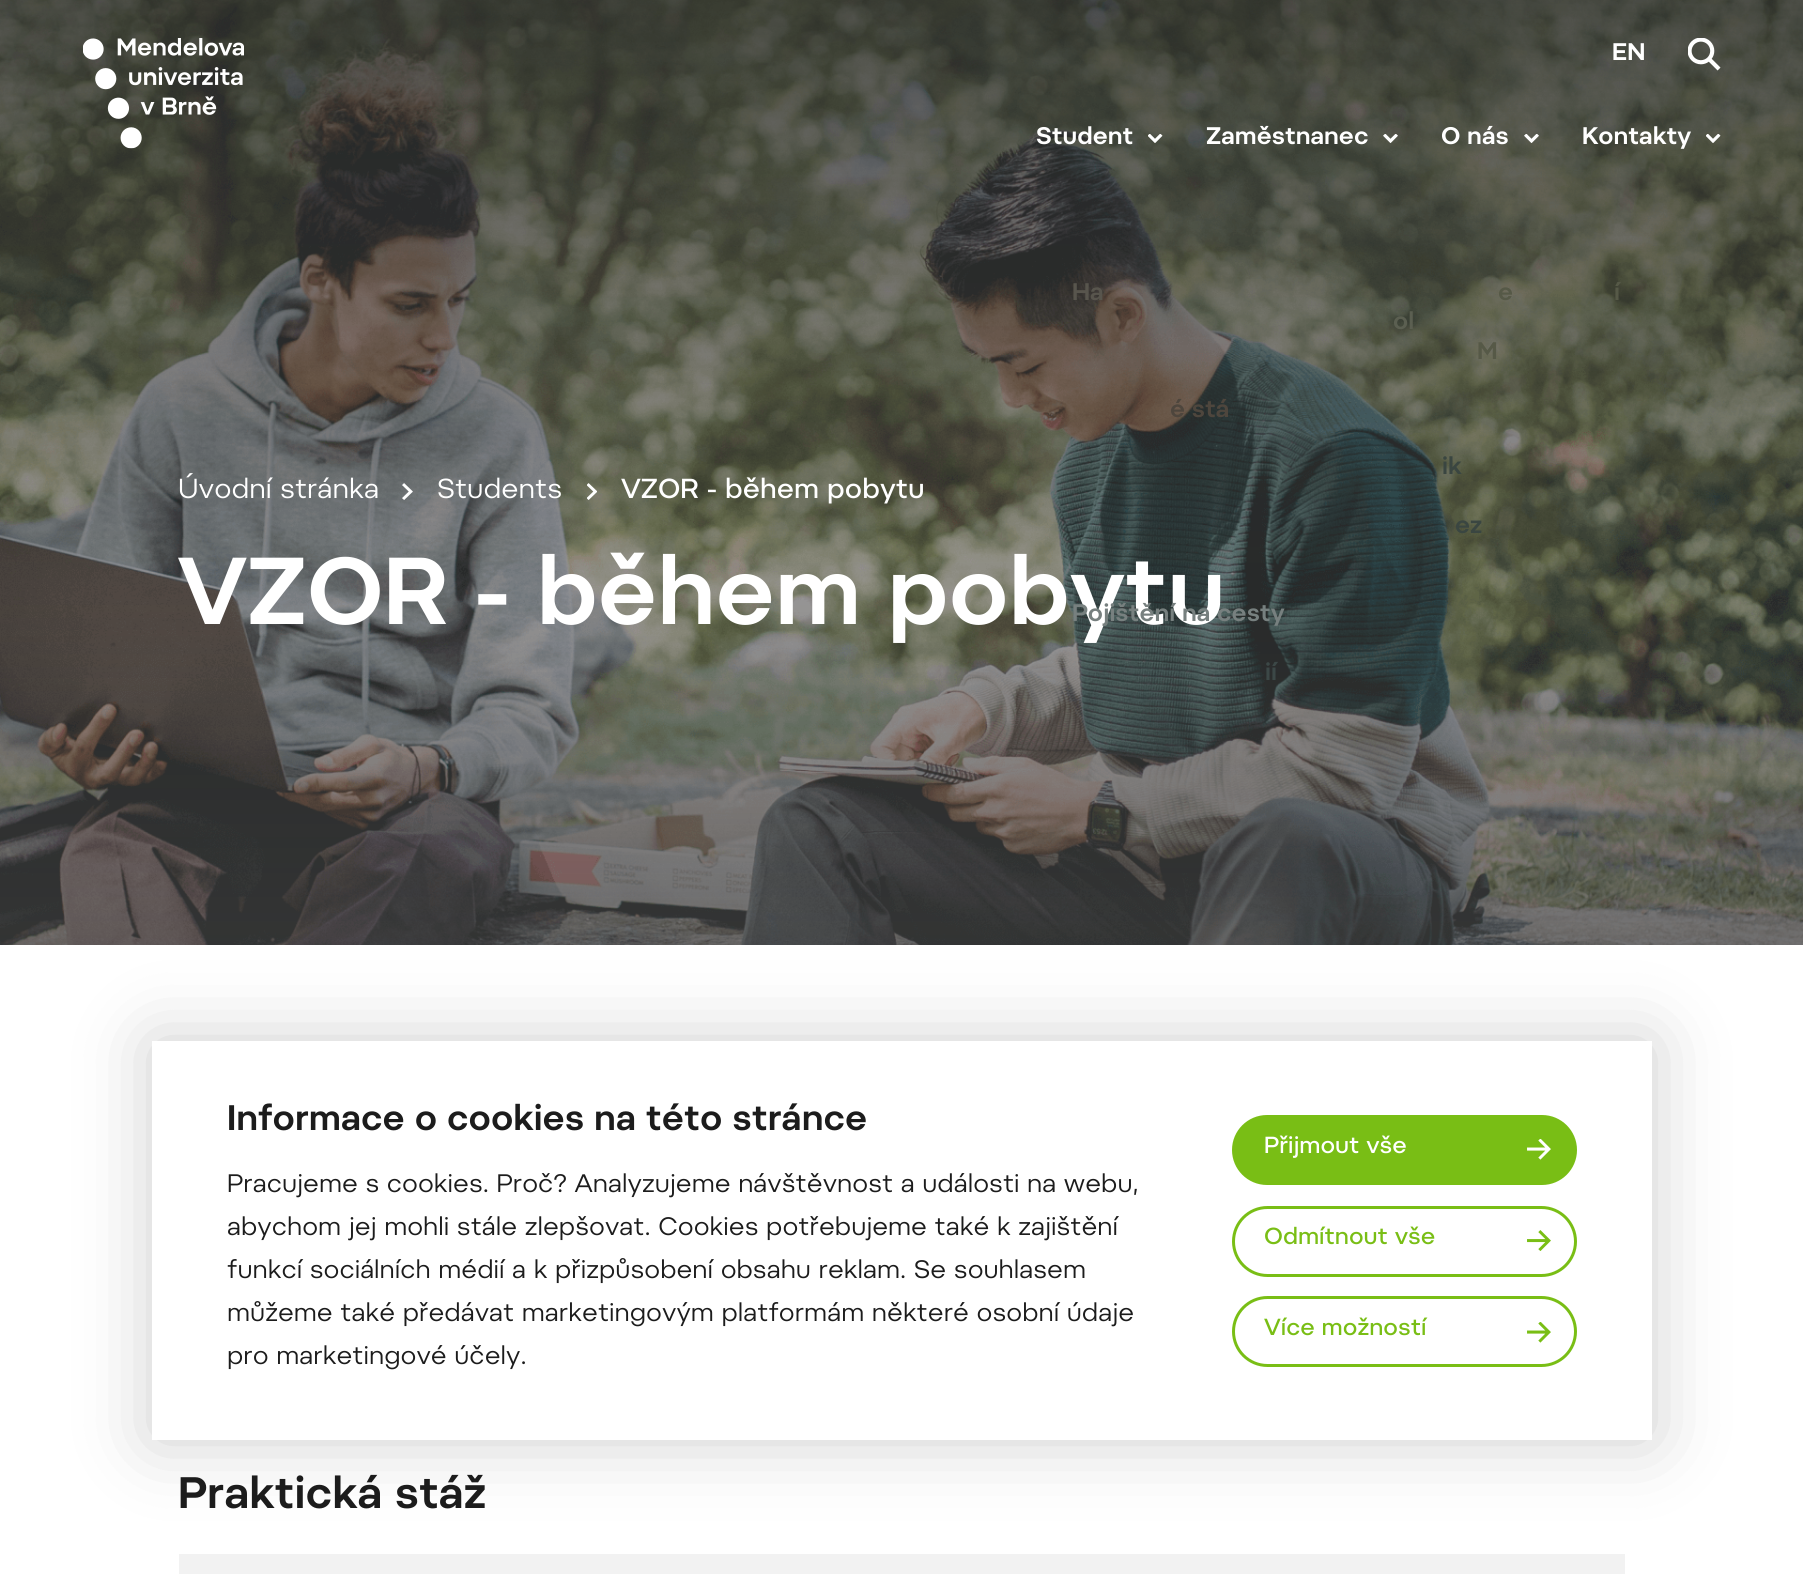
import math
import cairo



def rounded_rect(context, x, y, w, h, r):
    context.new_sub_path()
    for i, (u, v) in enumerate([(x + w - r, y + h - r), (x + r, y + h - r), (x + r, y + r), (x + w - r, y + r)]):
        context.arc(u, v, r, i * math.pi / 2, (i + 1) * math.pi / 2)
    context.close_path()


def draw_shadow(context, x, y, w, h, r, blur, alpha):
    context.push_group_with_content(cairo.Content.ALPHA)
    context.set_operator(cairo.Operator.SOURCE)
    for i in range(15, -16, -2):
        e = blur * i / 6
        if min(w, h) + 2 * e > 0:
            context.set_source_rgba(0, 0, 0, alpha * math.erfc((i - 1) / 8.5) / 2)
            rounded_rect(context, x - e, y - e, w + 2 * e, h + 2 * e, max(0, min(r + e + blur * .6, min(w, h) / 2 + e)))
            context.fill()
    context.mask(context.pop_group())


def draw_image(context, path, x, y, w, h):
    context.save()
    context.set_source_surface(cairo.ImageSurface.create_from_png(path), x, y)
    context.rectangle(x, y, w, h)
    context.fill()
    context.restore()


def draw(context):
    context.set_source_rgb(1, 1, 1)
    context.paint()
    draw_image(context, "images/7.png", 0, 0, 1803, 945)
    draw_image(context, "images/1.png", 83, 38, 161, 111)
    draw_image(context, "images/2.png", 1688, 38, 33, 33)
    draw_image(context, "images/3.png", 1148, 134, 15, 9)
    draw_image(context, "images/4.png", 1383, 134, 15, 9)
    draw_image(context, "images/5.png", 1524, 134, 15, 9)
    draw_image(context, "images/6.png", 1706, 134, 15, 9)
    draw_image(context, "images/8.png", 402, 483, 11, 17)
    draw_image(context, "images/9.png", 587, 483, 10, 17)
    context.set_source_rgb(242 / 255, 242 / 255, 242 / 255)
    context.rectangle(179, 1554, 1446, 20)
    context.fill()
    context.set_source_rgb(0, 0, 0)
    draw_shadow(context, 152, 1041, 1500, 399, 0, 37.5, 0.2)
    context.set_source_rgb(1, 1, 1)
    context.rectangle(152, 1041, 1500, 399)
    context.fill()
    context.set_source_rgb(121 / 255, 190 / 255, 21 / 255)
    rounded_rect(context, 1233.5, 1116.5, 342, 67, 33.5)
    context.fill_preserve()
    context.set_line_width(3)
    context.stroke()
    draw_image(context, "images/10.png", 1527, 1139, 24, 21)
    rounded_rect(context, 1233.5, 1207.5, 342, 68, 34)
    context.stroke()
    draw_image(context, "images/11.png", 1527, 1230, 24, 21)
    rounded_rect(context, 1233.5, 1297.5, 342, 68, 34)
    context.stroke()
    draw_image(context, "images/12.png", 1527, 1322, 24, 21)
    context.select_font_face("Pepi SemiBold")
    context.set_font_size(24)
    context.set_source_rgb(1, 1, 1)
    context.move_to(1612, 60)
    context.show_text("EN")
    context.move_to(1036, 144)
    context.show_text("Student")
    context.set_source_rgb(88 / 255, 85 / 255, 77 / 255)
    context.move_to(1072, 300)
    context.show_text("Ha")
    context.set_source_rgb(78 / 255, 70 / 255, 61 / 255)
    context.move_to(1170, 417)
    context.show_text("é stá")
    context.set_source_rgb(60 / 255, 72 / 255, 71 / 255)
    context.move_to(1265, 680)
    context.show_text("ií")
    context.set_source_rgb(1, 1, 1)
    context.move_to(1206, 144)
    context.show_text("Zaměstnanec")
    context.set_source_rgb(91 / 255, 95 / 255, 81 / 255)
    context.move_to(1393, 329)
    context.show_text("ol")
    context.set_source_rgb(58 / 255, 70 / 255, 65 / 255)
    context.move_to(1442, 474)
    context.show_text("ik")
    context.move_to(1455, 533)
    context.show_text("ez")
    context.set_source_rgb(1, 1, 1)
    context.move_to(1441, 144)
    context.show_text("O nás")
    context.set_source_rgb(86 / 255, 89 / 255, 71 / 255)
    context.move_to(1498, 300)
    context.show_text("e")
    context.move_to(1614, 300)
    context.show_text("í")
    context.move_to(1477, 359)
    context.show_text("M")
    context.set_source_rgb(1, 1, 1)
    context.move_to(1582, 144)
    context.show_text("Kontakty")
    context.select_font_face("Pepi")
    context.set_font_size(27.5)
    context.move_to(178, 498)
    context.show_text("Úvodní stránka")
    context.move_to(437, 498)
    context.show_text("Students")
    context.select_font_face("Pepi Medium")
    context.move_to(621, 498)
    context.show_text("VZOR - během pobytu")
    context.select_font_face("Pepi SemiBold")
    context.set_font_size(94.75)
    context.move_to(178, 624)
    context.show_text("VZOR - během pobytu")
    context.set_font_size(24)
    context.set_source_rgb(119 / 255, 128 / 255, 127 / 255)
    context.move_to(1072, 621)
    context.show_text("Pojištění na cesty")
    context.set_font_size(44)
    context.set_source_rgb(28 / 255, 28 / 255, 28 / 255)
    context.move_to(178, 1508)
    context.show_text("Praktická stáž")
    context.set_font_size(35.4)
    context.move_to(227, 1130)
    context.show_text("Informace o cookies na této stránce")
    context.select_font_face("Pepi")
    context.set_font_size(25.3)
    context.move_to(227, 1192)
    context.show_text("Pracujeme s cookies. Proč? Analyzujeme návštěvnost a události na webu,")
    context.move_to(227, 1235)
    context.show_text("abychom jej mohli stále zlepšovat. Cookies potřebujeme také k zajištění")
    context.move_to(227, 1278)
    context.show_text("funkcí sociálních médií a k přizpůsobení obsahu reklam. Se souhlasem")
    context.move_to(227, 1321)
    context.show_text("můžeme také předávat marketingovým platformám některé osobní údaje")
    context.move_to(227, 1364)
    context.show_text("pro marketingové účely.")
    context.select_font_face("Pepi Medium")
    context.set_font_size(23.25)
    context.set_source_rgb(1, 1, 1)
    context.move_to(1264, 1153)
    context.show_text("Přijmout vše")
    context.set_source_rgb(121 / 255, 190 / 255, 21 / 255)
    context.move_to(1264, 1244)
    context.show_text("Odmítnout vše")
    context.move_to(1264, 1335)
    context.show_text("Více možností")


surface = cairo.ImageSurface(cairo.Format.RGB24, 1803, 1574)
context = cairo.Context(surface)
options = cairo.FontOptions()
options.set_hint_metrics(cairo.HintMetrics.OFF)
options.set_hint_style(cairo.HintStyle.NONE)
context.set_font_options(options)
context.set_miter_limit(4)
draw(context)
surface.write_to_png("out.png")
